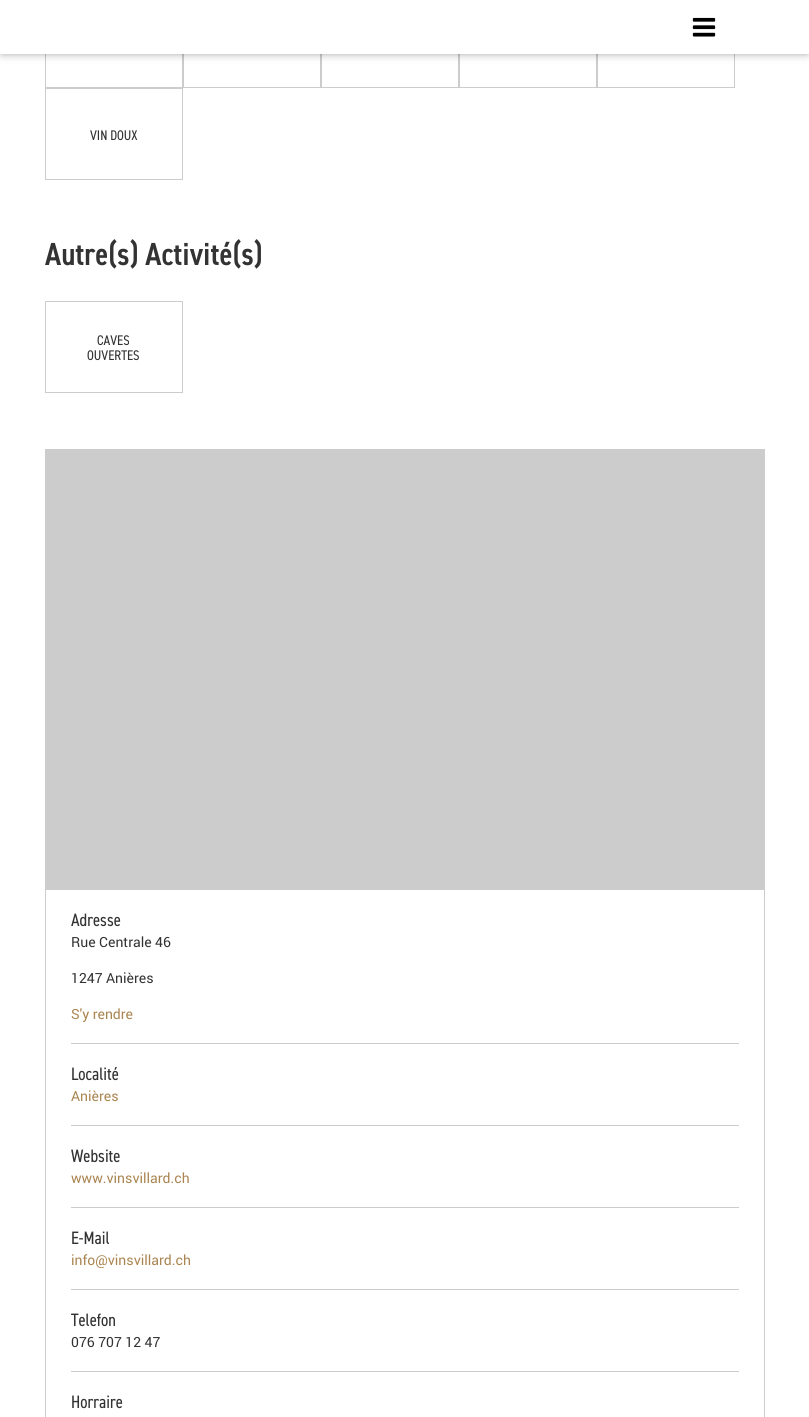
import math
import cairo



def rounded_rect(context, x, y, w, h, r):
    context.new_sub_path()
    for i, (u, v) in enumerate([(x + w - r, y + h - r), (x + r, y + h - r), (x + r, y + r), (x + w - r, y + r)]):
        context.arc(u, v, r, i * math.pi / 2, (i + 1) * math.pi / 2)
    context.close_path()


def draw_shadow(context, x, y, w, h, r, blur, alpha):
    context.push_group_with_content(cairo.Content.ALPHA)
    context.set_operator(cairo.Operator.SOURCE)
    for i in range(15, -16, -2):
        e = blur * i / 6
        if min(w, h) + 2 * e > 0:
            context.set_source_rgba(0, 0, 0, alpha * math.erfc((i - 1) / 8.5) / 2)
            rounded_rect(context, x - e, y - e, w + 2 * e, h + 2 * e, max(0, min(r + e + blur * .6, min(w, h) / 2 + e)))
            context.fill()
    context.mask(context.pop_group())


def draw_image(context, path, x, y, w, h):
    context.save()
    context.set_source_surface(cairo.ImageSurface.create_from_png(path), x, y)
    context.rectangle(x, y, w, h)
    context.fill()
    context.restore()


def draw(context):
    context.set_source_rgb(1, 1, 1)
    context.paint()
    context.rectangle(45.5, -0.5, 137, 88)
    context.set_source_rgb(204 / 255, 204 / 255, 204 / 255)
    context.set_line_width(1)
    context.stroke()
    context.rectangle(183.5, -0.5, 137, 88)
    context.stroke()
    context.rectangle(321.5, -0.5, 137, 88)
    context.stroke()
    context.rectangle(459.5, -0.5, 137, 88)
    context.stroke()
    context.rectangle(597.5, -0.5, 137, 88)
    context.stroke()
    context.set_source_rgb(0, 0, 0)
    draw_shadow(context, 2, 2, 805, 50, 0, 5, 0.5)
    context.set_source_rgb(1, 1, 1)
    context.rectangle(0, 0, 809, 54)
    context.fill()
    draw_image(context, "images/1.png", 692, 17, 24, 20)
    context.rectangle(45.5, 88.5, 137, 91)
    context.set_source_rgb(204 / 255, 204 / 255, 204 / 255)
    context.stroke()
    context.rectangle(45.5, 301.5, 137, 91)
    context.stroke()
    context.rectangle(45.5, 449.5, 719, 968)
    context.stroke()
    context.rectangle(46, 450, 718, 440)
    context.fill()
    context.rectangle(71, 1043, 668, 1)
    context.fill()
    context.rectangle(71, 1125, 668, 1)
    context.fill()
    context.rectangle(71, 1207, 668, 1)
    context.fill()
    context.rectangle(71, 1289, 668, 1)
    context.fill()
    context.rectangle(71, 1371, 668, 1)
    context.fill()
    context.select_font_face("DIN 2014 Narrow")
    context.set_font_size(14)
    context.set_source_rgb(51 / 255, 51 / 255, 51 / 255)
    context.move_to(90, 140)
    context.show_text("VIN DOUX")
    context.select_font_face("DIN 2014 Narrow SemiBold")
    context.set_font_size(32)
    context.move_to(45, 265)
    context.show_text("Autre(s) Activité(s)")
    context.select_font_face("DIN 2014 Narrow")
    context.set_font_size(14)
    context.move_to(97, 345)
    context.show_text("CAVES")
    context.move_to(87, 360)
    context.show_text("OUVERTES")
    context.set_font_size(18)
    context.move_to(71, 926)
    context.show_text("Adresse")
    context.select_font_face("Roboto")
    context.set_font_size(14)
    context.move_to(71, 947)
    context.show_text("Rue Centrale 46")
    context.move_to(71, 983)
    context.show_text("1247 Anières")
    context.set_source_rgb(170 / 255, 133 / 255, 81 / 255)
    context.move_to(71, 1019)
    context.show_text("S'y rendre")
    context.select_font_face("DIN 2014 Narrow")
    context.set_font_size(18)
    context.set_source_rgb(51 / 255, 51 / 255, 51 / 255)
    context.move_to(71, 1080)
    context.show_text("Localité")
    context.select_font_face("Roboto")
    context.set_font_size(14)
    context.set_source_rgb(170 / 255, 133 / 255, 81 / 255)
    context.move_to(71, 1101)
    context.show_text("Anières")
    context.select_font_face("DIN 2014 Narrow")
    context.set_font_size(18)
    context.set_source_rgb(51 / 255, 51 / 255, 51 / 255)
    context.move_to(71, 1162)
    context.show_text("Website")
    context.select_font_face("Roboto")
    context.set_font_size(14)
    context.set_source_rgb(170 / 255, 133 / 255, 81 / 255)
    context.move_to(71, 1183)
    context.show_text("www.vinsvillard.ch")
    context.select_font_face("DIN 2014 Narrow")
    context.set_font_size(18)
    context.set_source_rgb(51 / 255, 51 / 255, 51 / 255)
    context.move_to(71, 1244)
    context.show_text("E-Mail")
    context.select_font_face("Roboto")
    context.set_font_size(14)
    context.set_source_rgb(170 / 255, 133 / 255, 81 / 255)
    context.move_to(71, 1265)
    context.show_text("info@vinsvillard.ch")
    context.select_font_face("DIN 2014 Narrow")
    context.set_font_size(18)
    context.set_source_rgb(51 / 255, 51 / 255, 51 / 255)
    context.move_to(71, 1326)
    context.show_text("Telefon")
    context.select_font_face("Roboto")
    context.set_font_size(14)
    context.move_to(71, 1347)
    context.show_text("076 707 12 47")
    context.select_font_face("DIN 2014 Narrow")
    context.set_font_size(18)
    context.move_to(71, 1408)
    context.show_text("Horraire")


surface = cairo.ImageSurface(cairo.Format.RGB24, 809, 1417)
context = cairo.Context(surface)
options = cairo.FontOptions()
options.set_hint_metrics(cairo.HintMetrics.OFF)
options.set_hint_style(cairo.HintStyle.NONE)
context.set_font_options(options)
context.set_miter_limit(4)
draw(context)
surface.write_to_png("out.png")
